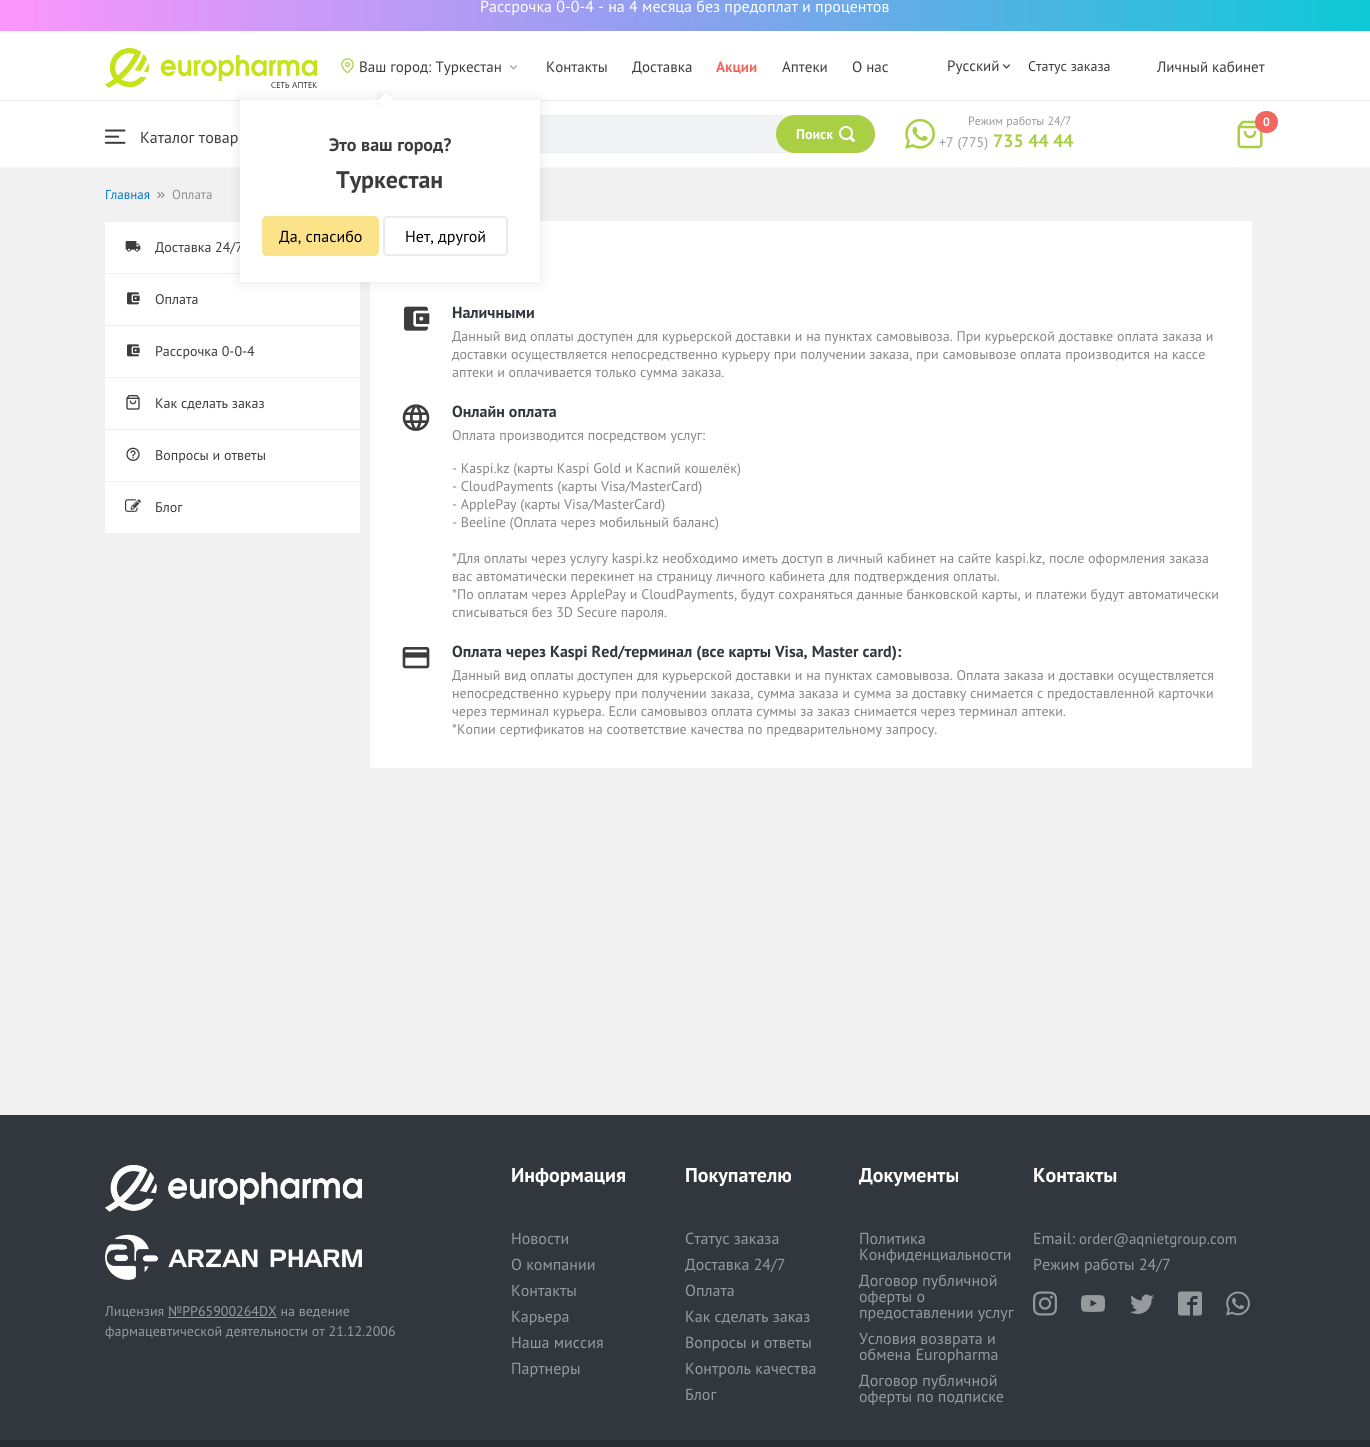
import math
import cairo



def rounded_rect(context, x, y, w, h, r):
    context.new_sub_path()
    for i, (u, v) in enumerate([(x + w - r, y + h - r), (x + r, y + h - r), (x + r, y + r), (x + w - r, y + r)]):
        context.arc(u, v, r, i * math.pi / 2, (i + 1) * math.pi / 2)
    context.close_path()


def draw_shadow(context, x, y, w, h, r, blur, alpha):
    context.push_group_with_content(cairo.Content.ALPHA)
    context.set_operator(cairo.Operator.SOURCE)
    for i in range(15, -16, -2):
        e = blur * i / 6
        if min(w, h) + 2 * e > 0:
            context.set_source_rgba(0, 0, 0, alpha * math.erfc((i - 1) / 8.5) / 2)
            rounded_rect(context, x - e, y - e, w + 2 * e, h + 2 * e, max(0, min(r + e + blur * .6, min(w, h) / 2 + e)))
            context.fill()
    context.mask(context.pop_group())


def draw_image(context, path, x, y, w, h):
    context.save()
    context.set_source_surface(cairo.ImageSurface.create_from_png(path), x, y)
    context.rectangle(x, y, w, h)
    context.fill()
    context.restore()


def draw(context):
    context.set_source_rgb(241 / 255, 241 / 255, 241 / 255)
    context.paint()
    gradient = cairo.LinearGradient(0, 9, 1370, 7.7)
    gradient.add_color_stop_rgba(0, 252 / 255, 150 / 255, 252 / 255, 1)
    gradient.add_color_stop_rgba(0.46, 149 / 255, 158 / 255, 241 / 255, 1)
    gradient.add_color_stop_rgba(1, 13 / 255, 201 / 255, 213 / 255, 1)
    context.set_source(gradient)
    context.rectangle(0, 0, 1370, 31)
    context.fill()
    context.set_source_rgb(1, 1, 1)
    context.rectangle(0, 31, 1370, 136)
    context.fill()
    context.set_source_rgb(235 / 255, 235 / 255, 235 / 255)
    context.rectangle(0, 100, 1370, 1)
    context.fill()
    draw_image(context, "images/1.png", 105, 48, 212, 40)
    draw_image(context, "images/2.png", 341, 58, 13, 16)
    draw_image(context, "images/3.png", 510, 65, 7, 5)
    context.set_source_rgb(246 / 255, 246 / 255, 246 / 255)
    context.rectangle(0, 167, 1370, 1)
    context.fill()
    context.set_source_rgb(241 / 255, 243 / 255, 244 / 255)
    rounded_rect(context, 335.5, 115.5, 539, 37, 18.5)
    context.fill_preserve()
    context.set_source_rgb(238 / 255, 238 / 255, 238 / 255)
    context.set_line_width(1)
    context.stroke()
    context.set_source_rgb(1, 1, 1)
    context.rectangle(105, 222, 255, 311)
    context.fill()
    context.set_source_rgb(240 / 255, 240 / 255, 240 / 255)
    context.rectangle(105, 273, 135, 1)
    context.fill()
    context.set_source_rgb(1, 1, 1)
    context.rectangle(370, 221, 882, 547)
    context.fill()
    context.set_source_rgb(0, 0, 0)
    draw_shadow(context, 240, 100, 300, 182, 0, 6, 0.1)
    draw_image(context, "images/4.png", 1002, 64, 9, 5)
    draw_image(context, "images/5.png", 905, 118, 30, 31)
    draw_image(context, "images/6.png", 1237, 120, 26, 29)
    context.set_source_rgb(241 / 255, 102 / 255, 94 / 255)
    rounded_rect(context, 1255, 111, 23, 22, 11)
    context.fill()
    draw_image(context, "images/7.png", 104, 129, 22, 15)
    context.set_source_rgb(169 / 255, 207 / 255, 68 / 255)
    rounded_rect(context, 776, 115, 99, 38, 19)
    context.fill()
    draw_image(context, "images/8.png", 839, 126, 16, 16)
    draw_image(context, "images/9.png", 157, 192, 8, 6)
    draw_image(context, "images/10.png", 125, 241, 16, 11)
    draw_image(context, "images/11.png", 127, 292, 13, 13)
    context.set_source_rgb(240 / 255, 240 / 255, 240 / 255)
    context.rectangle(105, 325, 255, 1)
    context.fill()
    draw_image(context, "images/11.png", 127, 344, 13, 13)
    context.rectangle(105, 377, 255, 1)
    context.fill()
    draw_image(context, "images/12.png", 126, 395, 14, 15)
    context.rectangle(105, 429, 255, 1)
    context.fill()
    draw_image(context, "images/13.png", 126, 447, 14, 14)
    context.rectangle(105, 481, 255, 1)
    context.fill()
    draw_image(context, "images/14.png", 125, 499, 16, 13)
    draw_image(context, "images/15.png", 404, 306, 26, 25)
    draw_image(context, "images/16.png", 402, 404, 28, 27)
    draw_image(context, "images/17.png", 402, 647, 28, 22)
    context.set_source_rgb(49 / 255, 55 / 255, 60 / 255)
    context.rectangle(0, 1115, 1370, 325)
    context.fill()
    draw_image(context, "images/18.png", 1033, 1291, 24, 25)
    draw_image(context, "images/19.png", 1081, 1295, 24, 17)
    draw_image(context, "images/20.png", 1130, 1294, 24, 20)
    draw_image(context, "images/21.png", 1178, 1291, 24, 25)
    draw_image(context, "images/22.png", 1226, 1291, 24, 25)
    draw_image(context, "images/23.png", 105, 1165, 257, 115)
    context.set_source_rgb(151 / 255, 154 / 255, 157 / 255)
    context.rectangle(168, 1317, 109, 1)
    context.fill()
    context.set_source_rgb(40 / 255, 45 / 255, 51 / 255)
    context.rectangle(0, 1440, 1370, 7)
    context.fill()
    context.select_font_face("PT Sans")
    context.set_font_size(16)
    context.set_source_rgb(1, 1, 1)
    context.move_to(480, 12)
    context.show_text("Рассрочка 0-0-4 - на 4 месяца без предоплат и процентов")
    context.set_font_size(15)
    context.set_source_rgb(60 / 255, 60 / 255, 60 / 255)
    context.move_to(359, 72)
    context.show_text("Ваш город: Туркестан")
    context.move_to(546, 72)
    context.show_text("Контакты")
    context.move_to(632, 72)
    context.show_text("Доставка")
    context.select_font_face("PT Sans", cairo.FontSlant.NORMAL, cairo.FontWeight.BOLD)
    context.set_source_rgb(241 / 255, 103 / 255, 94 / 255)
    context.move_to(716, 72)
    context.show_text("Акции")
    context.select_font_face("PT Sans")
    context.set_source_rgb(60 / 255, 60 / 255, 60 / 255)
    context.move_to(782, 72)
    context.show_text("Аптеки")
    context.move_to(852, 72)
    context.show_text("О нас")
    context.move_to(947, 71)
    context.show_text("Русский")
    context.set_font_size(14)
    context.move_to(1028, 71)
    context.show_text("Статус заказа")
    context.set_font_size(15)
    context.move_to(1157, 72)
    context.show_text("Личный кабинет")
    context.set_font_size(12)
    context.set_source_rgb(151 / 255, 154 / 255, 157 / 255)
    context.move_to(968, 125)
    context.show_text("Режим работы 24/7")
    context.set_font_size(14)
    context.move_to(939, 147)
    context.show_text("+7 (775)")
    context.select_font_face("PT Sans", cairo.FontSlant.NORMAL, cairo.FontWeight.BOLD)
    context.set_font_size(18)
    context.set_source_rgb(169 / 255, 207 / 255, 68 / 255)
    context.move_to(993, 147)
    context.show_text("735 44 44")
    context.set_font_size(12)
    context.set_source_rgb(1, 1, 1)
    context.move_to(1263, 126)
    context.show_text("0")
    context.select_font_face("PT Sans")
    context.set_font_size(16)
    context.set_source_rgb(60 / 255, 60 / 255, 60 / 255)
    context.move_to(140, 143)
    context.show_text("Каталог товар")
    context.select_font_face("PT Sans", cairo.FontSlant.NORMAL, cairo.FontWeight.BOLD)
    context.set_font_size(14)
    context.set_source_rgb(1, 1, 1)
    context.move_to(796, 139)
    context.show_text("Поиск")
    context.select_font_face("PT Sans")
    context.set_font_size(13)
    context.set_source_rgb(0, 119 / 255, 204 / 255)
    context.move_to(105, 199)
    context.show_text("Главная")
    context.set_source_rgb(141 / 255, 141 / 255, 141 / 255)
    context.move_to(172, 199)
    context.show_text("Оплата")
    context.set_font_size(14)
    context.set_source_rgb(60 / 255, 60 / 255, 60 / 255)
    context.move_to(155, 252)
    context.show_text("Доставка 24/7")
    context.set_source_rgb(1, 1, 1)
    context.rectangle(240, 100, 300, 182)
    context.fill()
    context.set_source_rgb(0, 0, 0)
    draw_shadow(context, 378, 93, 12, 12, 0, 2.5, 0.06)
    context.set_source_rgb(1, 1, 1)
    context.new_path()
    context.move_to(386, 92.5)
    context.line_to(394.5, 101)
    context.line_to(386, 109.5)
    context.line_to(377.5, 101)
    context.close_path()
    context.fill()
    rounded_rect(context, 384, 217, 123, 38, 3)
    context.set_source_rgb(235 / 255, 235 / 255, 235 / 255)
    context.set_line_width(2)
    context.stroke()
    context.set_font_size(16)
    context.set_source_rgb(0, 0, 0)
    context.move_to(405, 242)
    context.show_text("Нет, другой")
    context.set_source_rgb(252 / 255, 227 / 255, 137 / 255)
    rounded_rect(context, 263, 217, 115, 38, 4)
    context.fill_preserve()
    context.stroke()
    context.set_source_rgb(0, 0, 0)
    context.move_to(279, 242)
    context.show_text("Да, спасибо")
    context.select_font_face("PT Sans", cairo.FontSlant.NORMAL, cairo.FontWeight.BOLD)
    context.set_font_size(24)
    context.set_source_rgb(60 / 255, 60 / 255, 60 / 255)
    context.move_to(336, 188)
    context.show_text("Туркестан")
    context.set_font_size(18)
    context.move_to(329, 151)
    context.show_text("Это ваш город?")
    context.select_font_face("PT Sans")
    context.set_font_size(14)
    context.move_to(155, 304)
    context.show_text("Оплата")
    context.move_to(155, 356)
    context.show_text("Рассрочка 0-0-4")
    context.move_to(155, 408)
    context.show_text("Как сделать заказ")
    context.move_to(155, 460)
    context.show_text("Вопросы и ответы")
    context.move_to(155, 512)
    context.show_text("Блог")
    context.select_font_face("PT Sans", cairo.FontSlant.NORMAL, cairo.FontWeight.BOLD)
    context.set_font_size(16)
    context.set_source_rgb(49 / 255, 55 / 255, 60 / 255)
    context.move_to(452, 318)
    context.show_text("Наличными")
    context.select_font_face("PT Sans")
    context.set_font_size(14)
    context.set_source_rgb(134 / 255, 134 / 255, 134 / 255)
    context.move_to(452, 341)
    context.show_text("Данный вид оплаты доступен для курьерской доставки и на пунктах самовывоза. При курьерской доставке оплата заказа и")
    context.move_to(452, 359)
    context.show_text("доставки осуществляется непосредственно курьеру при получении заказа, при самовывозе оплата производится на кассе")
    context.move_to(452, 377)
    context.show_text("аптеки и оплачивается только сумма заказа.")
    context.select_font_face("PT Sans", cairo.FontSlant.NORMAL, cairo.FontWeight.BOLD)
    context.set_font_size(16)
    context.set_source_rgb(49 / 255, 55 / 255, 60 / 255)
    context.move_to(452, 417)
    context.show_text("Онлайн оплата")
    context.select_font_face("PT Sans")
    context.set_font_size(14)
    context.set_source_rgb(134 / 255, 134 / 255, 134 / 255)
    context.move_to(452, 440)
    context.show_text("Оплата производится посредством услуг:")
    context.move_to(452, 473)
    context.show_text("- Kaspi.kz (карты Kaspi Gold и Каспий кошелёк)")
    context.move_to(452, 491)
    context.show_text("- CloudPayments (карты Visa/MasterCard)")
    context.move_to(452, 509)
    context.show_text("- ApplePay (карты Visa/MasterCard)")
    context.move_to(452, 527)
    context.show_text("- Beeline (Оплата через мобильный баланс)")
    context.move_to(452, 563)
    context.show_text("*Для оплаты через услугу kaspi.kz необходимо иметь доступ в личный кабинет на сайте kaspi.kz, после оформления заказа")
    context.move_to(452, 581)
    context.show_text("вас автоматически перекинет на страницу личного кабинета для подтверждения оплаты.")
    context.move_to(452, 599)
    context.show_text("*По оплатам через ApplePay и CloudPayments, будут сохраняться данные банковской карты, и платежи будут автоматически")
    context.move_to(452, 617)
    context.show_text("списываться без 3D Secure пароля.")
    context.select_font_face("PT Sans", cairo.FontSlant.NORMAL, cairo.FontWeight.BOLD)
    context.set_font_size(16)
    context.set_source_rgb(49 / 255, 55 / 255, 60 / 255)
    context.move_to(452, 657)
    context.show_text("Оплата через Kaspi Red/терминал (все карты Visa, Master card):")
    context.select_font_face("PT Sans")
    context.set_font_size(14)
    context.set_source_rgb(134 / 255, 134 / 255, 134 / 255)
    context.move_to(452, 680)
    context.show_text("Данный вид оплаты доступен для курьерской доставки и на пунктах самовывоза. Оплата заказа и доставки осуществляется")
    context.move_to(452, 698)
    context.show_text("непосредственно курьеру при получении заказа, сумма заказа и сумма за доставку снимается с предоставленной карточки")
    context.move_to(452, 716)
    context.show_text("через терминал курьера. Если самовывоз оплата суммы за заказ снимается через терминал аптеки.")
    context.move_to(452, 734)
    context.show_text("*Копии сертификатов на соответствие качества по предварительному запросу.")
    context.select_font_face("PT Sans", cairo.FontSlant.NORMAL, cairo.FontWeight.BOLD)
    context.set_font_size(20)
    context.set_source_rgb(1, 1, 1)
    context.move_to(511, 1182)
    context.show_text("Информация")
    context.select_font_face("PT Sans")
    context.set_font_size(16)
    context.set_source_rgb(151 / 255, 154 / 255, 157 / 255)
    context.move_to(511, 1244)
    context.show_text("Новости")
    context.move_to(511, 1270)
    context.show_text("О компании")
    context.move_to(511, 1296)
    context.show_text("Контакты")
    context.move_to(511, 1322)
    context.show_text("Карьера")
    context.move_to(511, 1348)
    context.show_text("Наша миссия")
    context.move_to(511, 1374)
    context.show_text("Партнеры")
    context.select_font_face("PT Sans", cairo.FontSlant.NORMAL, cairo.FontWeight.BOLD)
    context.set_font_size(20)
    context.set_source_rgb(1, 1, 1)
    context.move_to(685, 1182)
    context.show_text("Покупателю")
    context.select_font_face("PT Sans")
    context.set_font_size(16)
    context.set_source_rgb(151 / 255, 154 / 255, 157 / 255)
    context.move_to(685, 1244)
    context.show_text("Статус заказа")
    context.move_to(685, 1270)
    context.show_text("Доставка 24/7")
    context.move_to(685, 1296)
    context.show_text("Оплата")
    context.move_to(685, 1322)
    context.show_text("Как сделать заказ")
    context.move_to(685, 1348)
    context.show_text("Вопросы и ответы")
    context.move_to(685, 1374)
    context.show_text("Контроль качества")
    context.move_to(685, 1400)
    context.show_text("Блог")
    context.select_font_face("PT Sans", cairo.FontSlant.NORMAL, cairo.FontWeight.BOLD)
    context.set_font_size(20)
    context.set_source_rgb(1, 1, 1)
    context.move_to(859, 1182)
    context.show_text("Документы")
    context.select_font_face("PT Sans")
    context.set_font_size(16)
    context.set_source_rgb(151 / 255, 154 / 255, 157 / 255)
    context.move_to(859, 1244)
    context.show_text("Политика")
    context.move_to(859, 1260)
    context.show_text("Конфиденциальности")
    context.move_to(859, 1286)
    context.show_text("Договор публичной")
    context.move_to(859, 1302)
    context.show_text("оферты о")
    context.move_to(859, 1318)
    context.show_text("предоставлении услуг")
    context.move_to(859, 1344)
    context.show_text("Условия возврата и")
    context.move_to(859, 1360)
    context.show_text("обмена Europharma")
    context.move_to(859, 1386)
    context.show_text("Договор публичной")
    context.move_to(859, 1402)
    context.show_text("оферты по подписке")
    context.select_font_face("PT Sans", cairo.FontSlant.NORMAL, cairo.FontWeight.BOLD)
    context.set_font_size(20)
    context.set_source_rgb(1, 1, 1)
    context.move_to(1033, 1182)
    context.show_text("Контакты")
    context.select_font_face("PT Sans")
    context.set_font_size(16)
    context.set_source_rgb(151 / 255, 154 / 255, 157 / 255)
    context.move_to(1033, 1244)
    context.show_text("Email:")
    context.set_font_size(15)
    context.move_to(1079, 1244)
    context.show_text("order@aqnietgroup.com")
    context.set_font_size(16)
    context.move_to(1033, 1270)
    context.show_text("Режим работы 24/7")
    context.set_font_size(14)
    context.move_to(105, 1316)
    context.show_text("Лицензия №PP65900264DX на ведение")
    context.move_to(105, 1336)
    context.show_text("фармацевтической деятельности от 21.12.2006")


surface = cairo.ImageSurface(cairo.Format.RGB24, 1370, 1447)
context = cairo.Context(surface)
options = cairo.FontOptions()
options.set_hint_metrics(cairo.HintMetrics.OFF)
options.set_hint_style(cairo.HintStyle.NONE)
context.set_font_options(options)
context.set_miter_limit(4)
draw(context)
surface.write_to_png("out.png")
